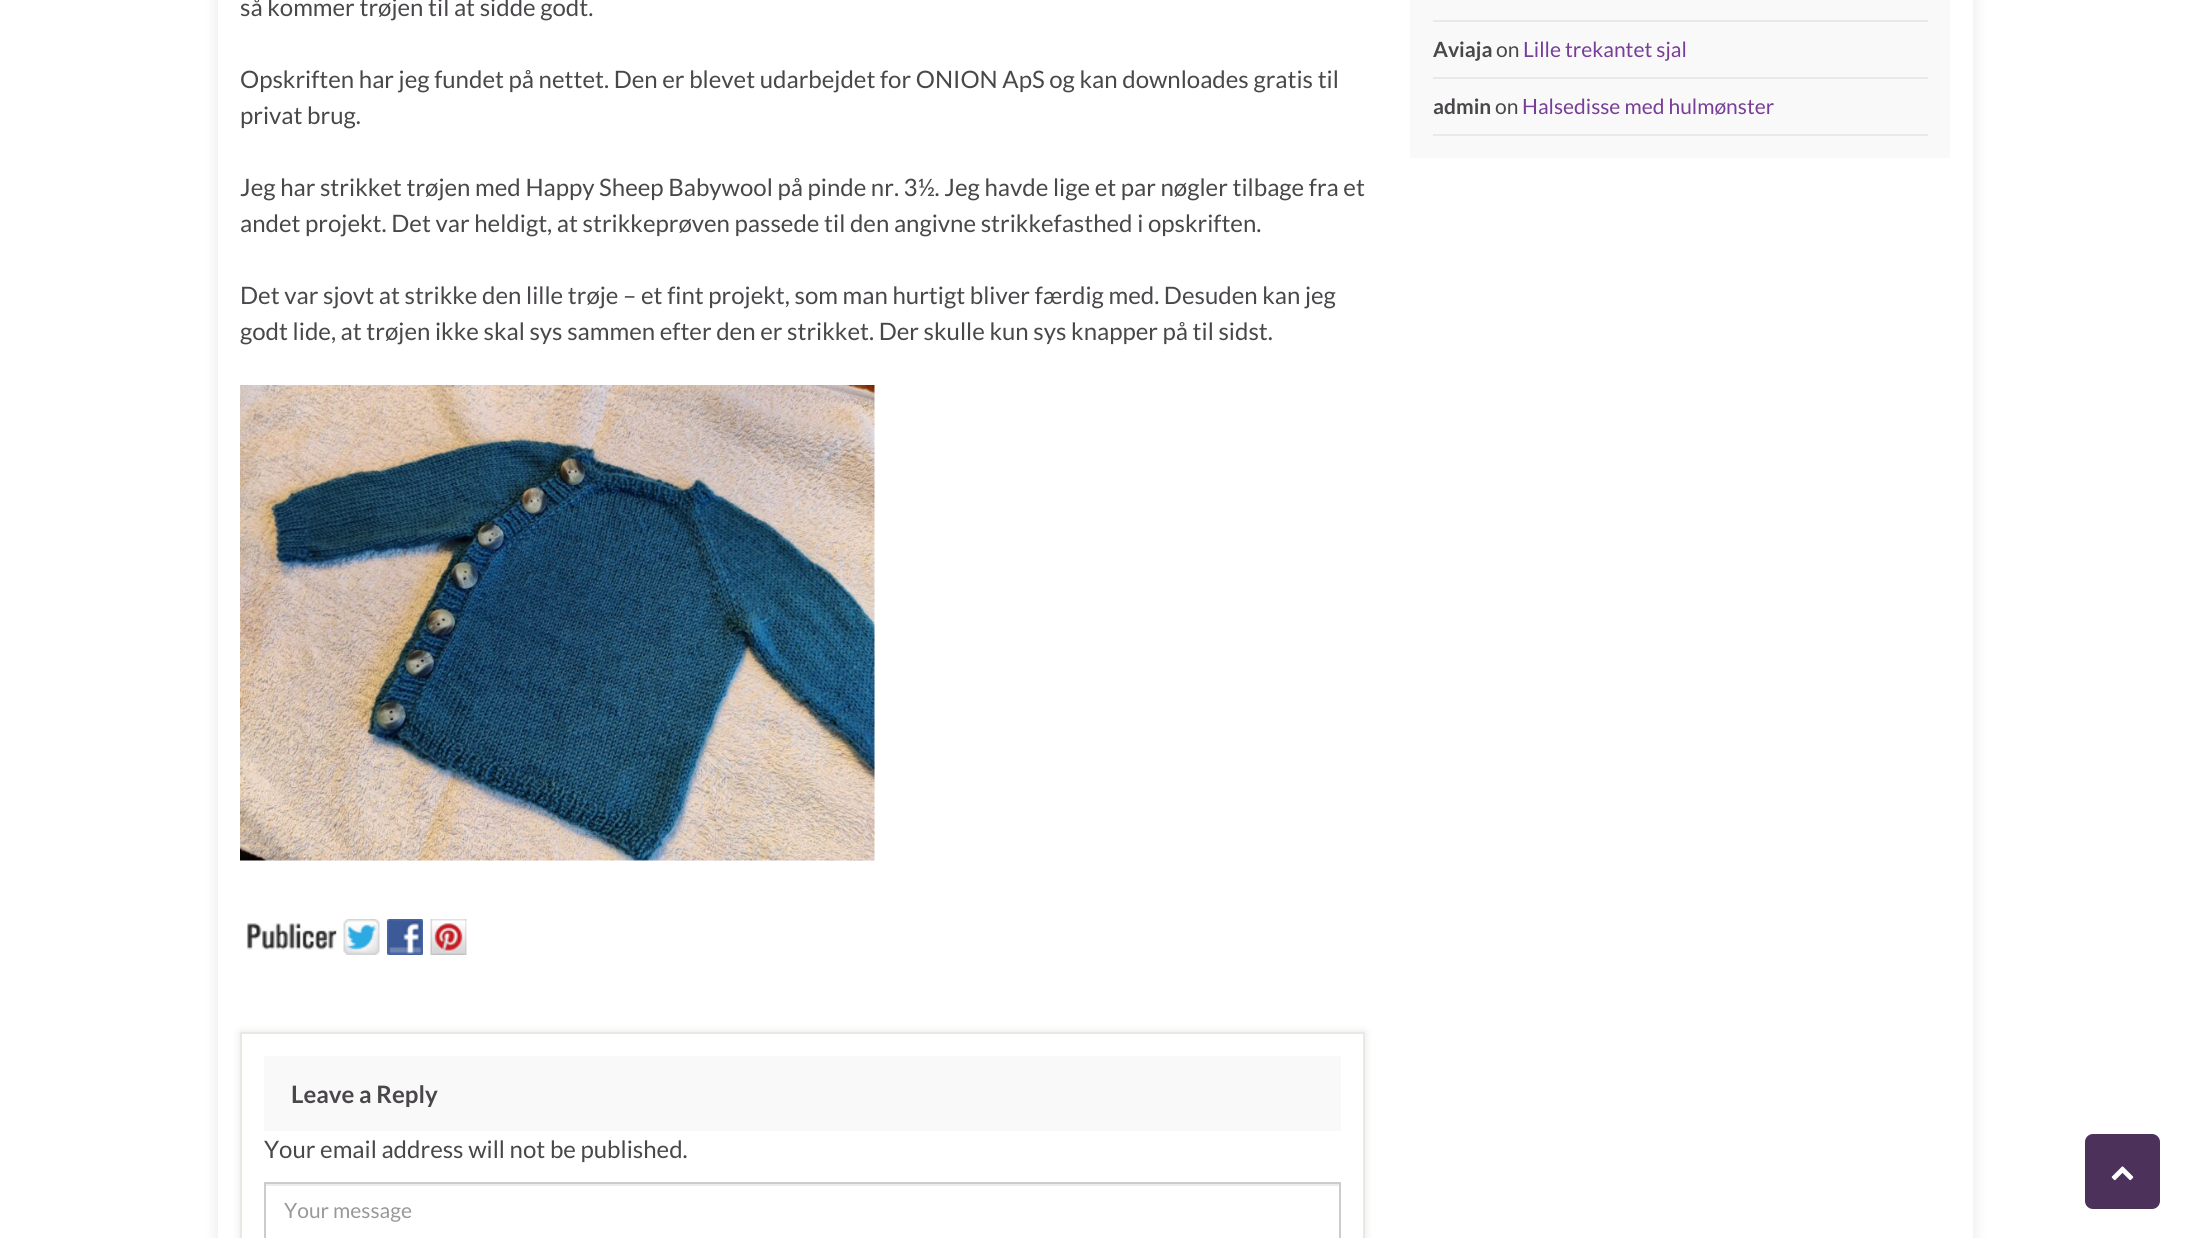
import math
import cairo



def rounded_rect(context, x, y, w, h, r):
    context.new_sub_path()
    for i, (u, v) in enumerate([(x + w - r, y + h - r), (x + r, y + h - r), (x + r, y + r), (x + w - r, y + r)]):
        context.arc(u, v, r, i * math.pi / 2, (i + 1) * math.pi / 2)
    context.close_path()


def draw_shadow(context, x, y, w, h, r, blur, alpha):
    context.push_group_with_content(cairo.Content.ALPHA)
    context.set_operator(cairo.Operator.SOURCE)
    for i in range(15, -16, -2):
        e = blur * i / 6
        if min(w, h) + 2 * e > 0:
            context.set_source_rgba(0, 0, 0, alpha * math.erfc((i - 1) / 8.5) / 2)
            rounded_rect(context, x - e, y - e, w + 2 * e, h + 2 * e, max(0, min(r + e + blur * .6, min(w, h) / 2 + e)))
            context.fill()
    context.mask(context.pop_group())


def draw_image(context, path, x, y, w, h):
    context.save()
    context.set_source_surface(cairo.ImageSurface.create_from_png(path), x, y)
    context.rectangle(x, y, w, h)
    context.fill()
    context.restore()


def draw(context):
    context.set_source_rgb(1, 1, 1)
    context.paint()
    context.set_source_rgb(0, 0, 0)
    draw_shadow(context, 218, -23, 1755, 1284, 0, 7.5, 0.1)
    context.set_source_rgb(1, 1, 1)
    context.rectangle(218, 0, 1755, 1238)
    context.fill()
    draw_image(context, "images/1.png", 240, 385, 635, 476)
    draw_image(context, "images/2.png", 246, 923, 91, 27)
    draw_image(context, "images/3.png", 343, 919, 37, 36)
    draw_image(context, "images/4.png", 387, 919, 36, 36)
    draw_image(context, "images/5.png", 430, 919, 37, 36)
    context.save()
    context.set_fill_rule(cairo.FillRule.EVEN_ODD)
    context.new_path()
    context.move_to(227, 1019)
    context.line_to(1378, 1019)
    context.line_to(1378, 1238)
    context.line_to(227, 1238)
    context.close_path()
    context.move_to(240, 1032)
    context.line_to(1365, 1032)
    context.line_to(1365, 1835)
    context.line_to(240, 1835)
    context.close_path()
    context.clip()
    context.set_source_rgb(0, 0, 0)
    draw_shadow(context, 240, 1032, 1125, 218, 0, 4, 0.1)
    context.restore()
    context.rectangle(241, 1033, 1123, 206)
    context.set_source_rgb(233 / 255, 232 / 255, 227 / 255)
    context.stroke()
    context.set_source_rgb(249 / 255, 249 / 255, 249 / 255)
    context.rectangle(264, 1056, 1077, 75)
    context.fill()
    context.set_source_rgb(236 / 255, 236 / 255, 236 / 255)
    context.rectangle(266, 1184, 1074, 2)
    context.fill()
    context.rectangle(265, 1183, 1075, 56)
    context.set_source_rgb(204 / 255, 204 / 255, 204 / 255)
    context.stroke()
    context.set_source_rgb(249 / 255, 249 / 255, 249 / 255)
    context.rectangle(1410, 0, 540, 158)
    context.fill()
    context.set_source_rgb(233 / 255, 233 / 255, 233 / 255)
    context.rectangle(1433, 20, 495, 2)
    context.fill()
    context.rectangle(1433, 77, 495, 2)
    context.fill()
    context.rectangle(1433, 134, 495, 2)
    context.fill()
    context.set_source_rgb(76 / 255, 49 / 255, 90 / 255)
    rounded_rect(context, 2085, 1134, 75, 75, 8)
    context.fill()
    draw_image(context, "images/6.png", 2111, 1166, 23, 15)
    context.select_font_face("Lato")
    context.set_font_size(24)
    context.set_source_rgb(74 / 255, 71 / 255, 75 / 255)
    context.move_to(240, 16)
    context.show_text("så kommer trøjen til at sidde godt.")
    context.move_to(240, 88)
    context.show_text("Opskriften har jeg fundet på nettet. Den er blevet udarbejdet for ONION ApS og kan downloades gratis til")
    context.move_to(240, 124)
    context.show_text("privat brug.")
    context.move_to(240, 196)
    context.show_text("Jeg har strikket trøjen med Happy Sheep Babywool på pinde nr. 3½. Jeg havde lige et par nøgler tilbage fra et")
    context.move_to(240, 232)
    context.show_text("andet projekt. Det var heldigt, at strikkeprøven passede til den angivne strikkefasthed i opskriften.")
    context.move_to(240, 304)
    context.show_text("Det var sjovt at strikke den lille trøje – et fint projekt, som man hurtigt bliver færdig med. Desuden kan jeg")
    context.move_to(240, 340)
    context.show_text("godt lide, at trøjen ikke skal sys sammen efter den er strikket. Der skulle kun sys knapper på til sidst.")
    context.select_font_face("Lato", cairo.FontSlant.NORMAL, cairo.FontWeight.BOLD)
    context.move_to(291, 1103)
    context.show_text("Leave a Reply")
    context.select_font_face("Lato")
    context.move_to(264, 1158)
    context.show_text("Your email address will not be published.")
    context.set_font_size(21)
    context.set_source_rgb(153 / 255, 153 / 255, 153 / 255)
    context.move_to(284, 1218)
    context.show_text("Your message")
    context.select_font_face("Lato", cairo.FontSlant.NORMAL, cairo.FontWeight.BOLD)
    context.set_source_rgb(74 / 255, 71 / 255, 75 / 255)
    context.move_to(1433, 57)
    context.show_text("Aviaja")
    context.select_font_face("Lato")
    context.move_to(1496, 57)
    context.show_text("on")
    context.set_source_rgb(120 / 255, 61 / 255, 152 / 255)
    context.move_to(1523, 57)
    context.show_text("Lille trekantet sjal")
    context.select_font_face("Lato", cairo.FontSlant.NORMAL, cairo.FontWeight.BOLD)
    context.set_source_rgb(74 / 255, 71 / 255, 75 / 255)
    context.move_to(1433, 114)
    context.show_text("admin")
    context.select_font_face("Lato")
    context.move_to(1495, 114)
    context.show_text("on")
    context.set_source_rgb(120 / 255, 61 / 255, 152 / 255)
    context.move_to(1522, 114)
    context.show_text("Halsedisse med hulmønster")


surface = cairo.ImageSurface(cairo.Format.RGB24, 2189, 1238)
context = cairo.Context(surface)
options = cairo.FontOptions()
options.set_hint_metrics(cairo.HintMetrics.OFF)
options.set_hint_style(cairo.HintStyle.NONE)
context.set_font_options(options)
context.set_miter_limit(4)
draw(context)
surface.write_to_png("out.png")
